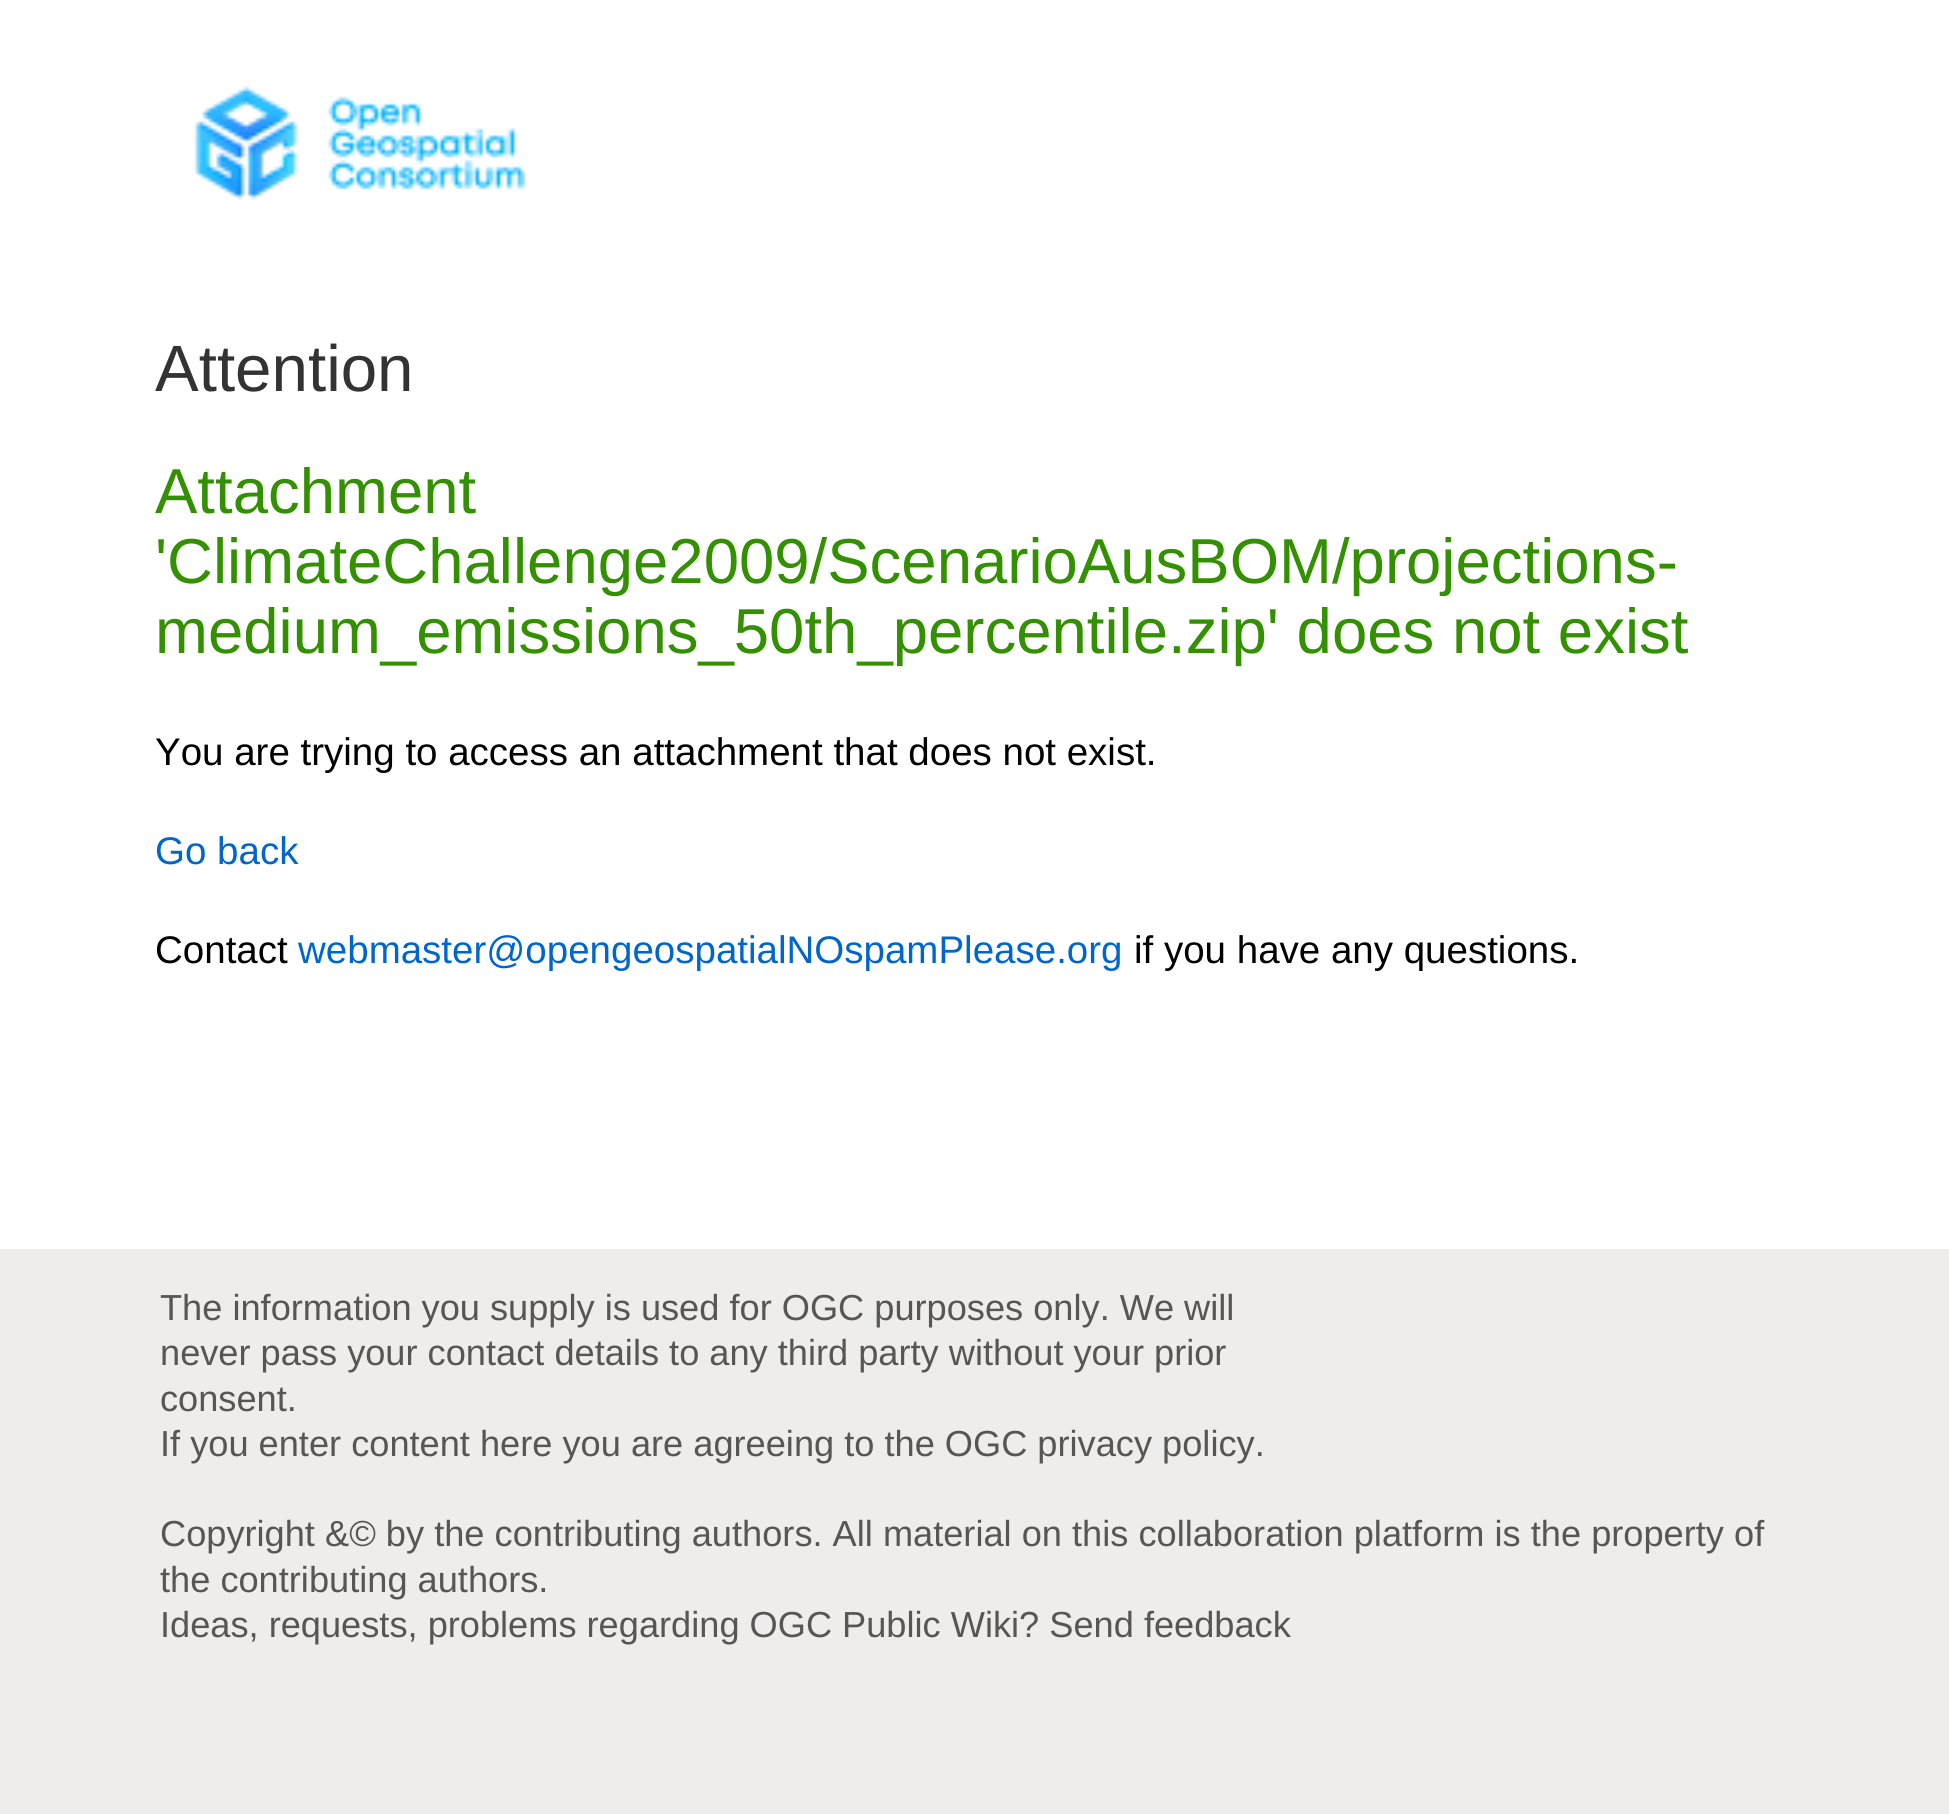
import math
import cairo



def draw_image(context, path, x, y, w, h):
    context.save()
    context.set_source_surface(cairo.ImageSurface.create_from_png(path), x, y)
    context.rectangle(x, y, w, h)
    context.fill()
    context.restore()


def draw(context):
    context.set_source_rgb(238 / 255, 237 / 255, 236 / 255)
    context.paint()
    context.set_source_rgb(1, 1, 1)
    context.rectangle(0, 0, 1949, 1249)
    context.fill()
    draw_image(context, "images/1.png", 194, 86, 332, 114)
    context.select_font_face("Liberation Sans")
    context.set_font_size(65.5)
    context.set_source_rgb(51 / 255, 51 / 255, 51 / 255)
    context.move_to(155, 391)
    context.show_text("Attention")
    context.set_font_size(63.5)
    context.set_source_rgb(51 / 255, 144 / 255, 0)
    context.move_to(155, 513)
    context.show_text("Attachment")
    context.move_to(155, 583)
    context.show_text("'ClimateChallenge2009/ScenarioAusBOM/projections-")
    context.move_to(155, 653)
    context.show_text("medium_emissions_50th_percentile.zip' does not exist")
    context.set_font_size(38.5)
    context.set_source_rgb(0, 0, 0)
    context.move_to(155, 765)
    context.show_text("You are trying to access an attachment that does not exist.")
    context.set_source_rgb(0, 102 / 255, 204 / 255)
    context.move_to(155, 864)
    context.show_text("Go back")
    context.set_source_rgb(0, 0, 0)
    context.move_to(155, 963)
    context.show_text("Contact")
    context.set_source_rgb(0, 102 / 255, 204 / 255)
    context.move_to(298, 963)
    context.show_text("webmaster@opengeospatialNOspamPlease.org")
    context.set_source_rgb(0, 0, 0)
    context.move_to(1134, 963)
    context.show_text("if you have any questions.")
    context.set_font_size(36.2)
    context.set_source_rgb(86 / 255, 86 / 255, 86 / 255)
    context.move_to(160, 1320)
    context.show_text("The information you supply is used for OGC purposes only. We will")
    context.move_to(160, 1365)
    context.show_text("never pass your contact details to any third party without your prior")
    context.move_to(160, 1411)
    context.show_text("consent.")
    context.move_to(160, 1456)
    context.show_text("If you enter content here you are agreeing to the OGC privacy policy.")
    context.move_to(160, 1546)
    context.show_text("Copyright &© by the contributing authors. All material on this collaboration platform is the property of")
    context.move_to(160, 1592)
    context.show_text("the contributing authors.")
    context.move_to(160, 1637)
    context.show_text("Ideas, requests, problems regarding OGC Public Wiki? Send feedback")


surface = cairo.ImageSurface(cairo.Format.RGB24, 1949, 1814)
context = cairo.Context(surface)
options = cairo.FontOptions()
options.set_hint_metrics(cairo.HintMetrics.OFF)
options.set_hint_style(cairo.HintStyle.NONE)
context.set_font_options(options)
context.set_miter_limit(4)
draw(context)
surface.write_to_png("out.png")
